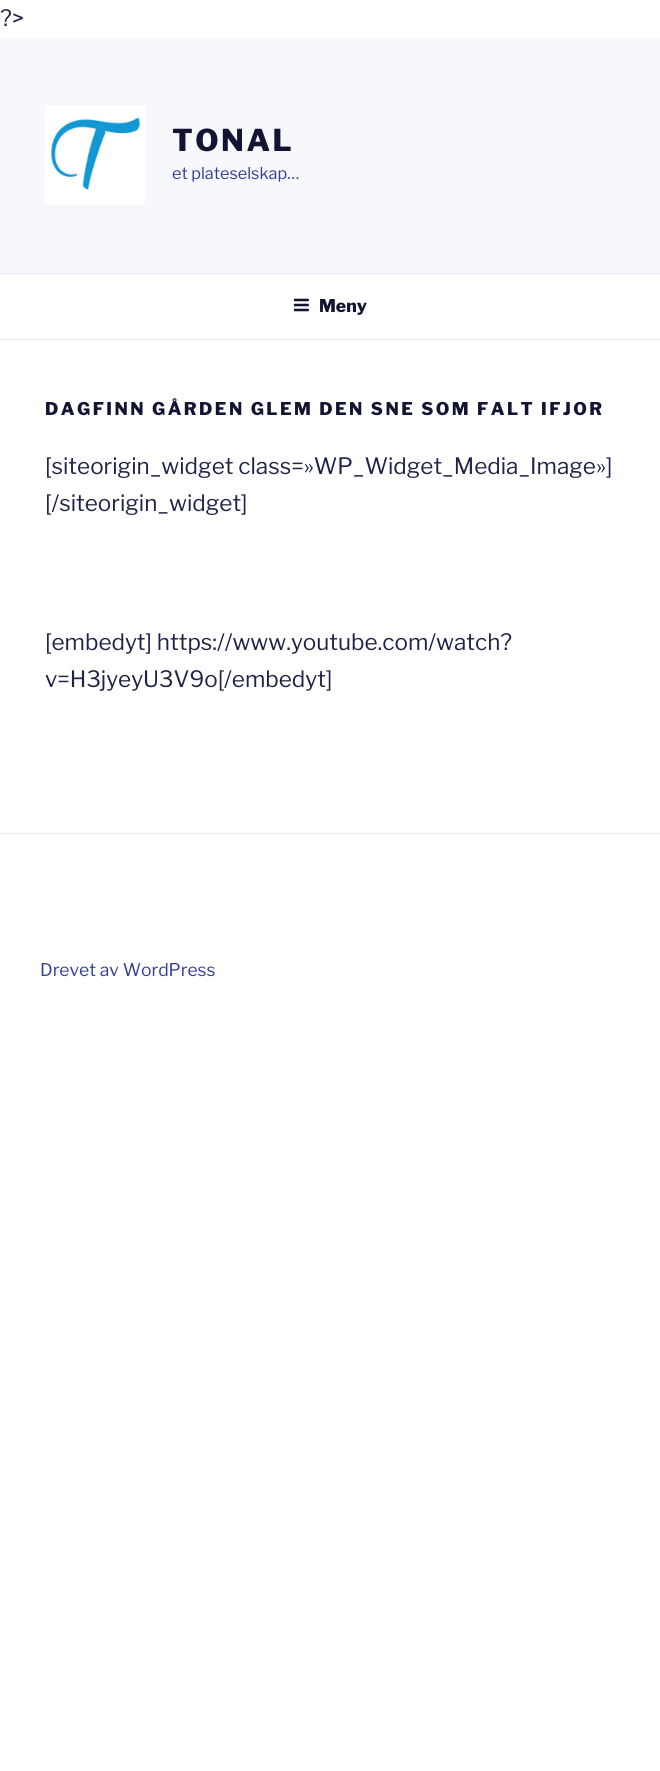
import math
import cairo



def draw_spaced(context, x, y, s, letter, word):
    context.move_to(x, y)
    for ch in s:
        context.show_text(ch)
        context.rel_move_to(letter + word * (ch == ' '), 0)


def draw_image(context, path, x, y, w, h):
    context.save()
    context.set_source_surface(cairo.ImageSurface.create_from_png(path), x, y)
    context.rectangle(x, y, w, h)
    context.fill()
    context.restore()


def draw(context):
    context.set_source_rgb(1, 1, 1)
    context.paint()
    context.set_source_rgb(247 / 255, 248 / 255, 252 / 255)
    context.rectangle(0, 38, 660, 235)
    context.fill()
    draw_image(context, "images/1.png", 45, 105, 100, 100)
    context.set_source_rgb(228 / 255, 230 / 255, 246 / 255)
    context.rectangle(0, 273, 660, 1)
    context.fill()
    context.rectangle(0, 339, 660, 1)
    context.fill()
    draw_image(context, "images/2.png", 293, 298, 16, 14)
    context.rectangle(0, 833, 660, 1)
    context.fill()
    context.select_font_face("Libre Franklin Thin")
    context.set_font_size(22.5)
    context.set_source_rgb(31 / 255, 35 / 255, 71 / 255)
    context.move_to(0, 26)
    context.show_text("?>")
    context.select_font_face("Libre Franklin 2 Thin")
    context.set_font_size(30)
    context.set_source_rgb(17 / 255, 20 / 255, 50 / 255)
    draw_spaced(context, 172, 151, "TONAL", 2.5, 0)
    context.select_font_face("Libre Franklin Thin")
    context.set_font_size(16.25)
    context.set_source_rgb(51 / 255, 61 / 255, 153 / 255)
    context.move_to(172, 179)
    context.show_text("et plateselskap…")
    context.select_font_face("Libre Franklin 2 Thin")
    context.set_font_size(17.5)
    context.set_source_rgb(17 / 255, 20 / 255, 50 / 255)
    context.move_to(319, 312)
    context.show_text("Meny")
    draw_spaced(context, 45, 415, "DAGFINN GÅRDEN GLEM DEN SNE SOM FALT IFJOR", 2.45, 0)
    context.select_font_face("Libre Franklin Thin")
    context.set_font_size(22.5)
    context.set_source_rgb(31 / 255, 35 / 255, 71 / 255)
    context.move_to(45, 474)
    context.show_text("[siteorigin_widget class=»WP_Widget_Media_Image»]")
    context.move_to(45, 511)
    context.show_text("[/siteorigin_widget]")
    context.move_to(45, 650)
    context.show_text("[embedyt] https://www.youtube.com/watch?")
    context.move_to(45, 687)
    context.show_text("v=H3jyeyU3V9o[/embedyt]")
    context.set_font_size(17.5)
    context.set_source_rgb(51 / 255, 61 / 255, 153 / 255)
    context.move_to(40, 976)
    context.show_text("Drevet av WordPress")


surface = cairo.ImageSurface(cairo.Format.RGB24, 660, 1771)
context = cairo.Context(surface)
options = cairo.FontOptions()
options.set_hint_metrics(cairo.HintMetrics.OFF)
options.set_hint_style(cairo.HintStyle.NONE)
context.set_font_options(options)
context.set_miter_limit(4)
draw(context)
surface.write_to_png("out.png")
